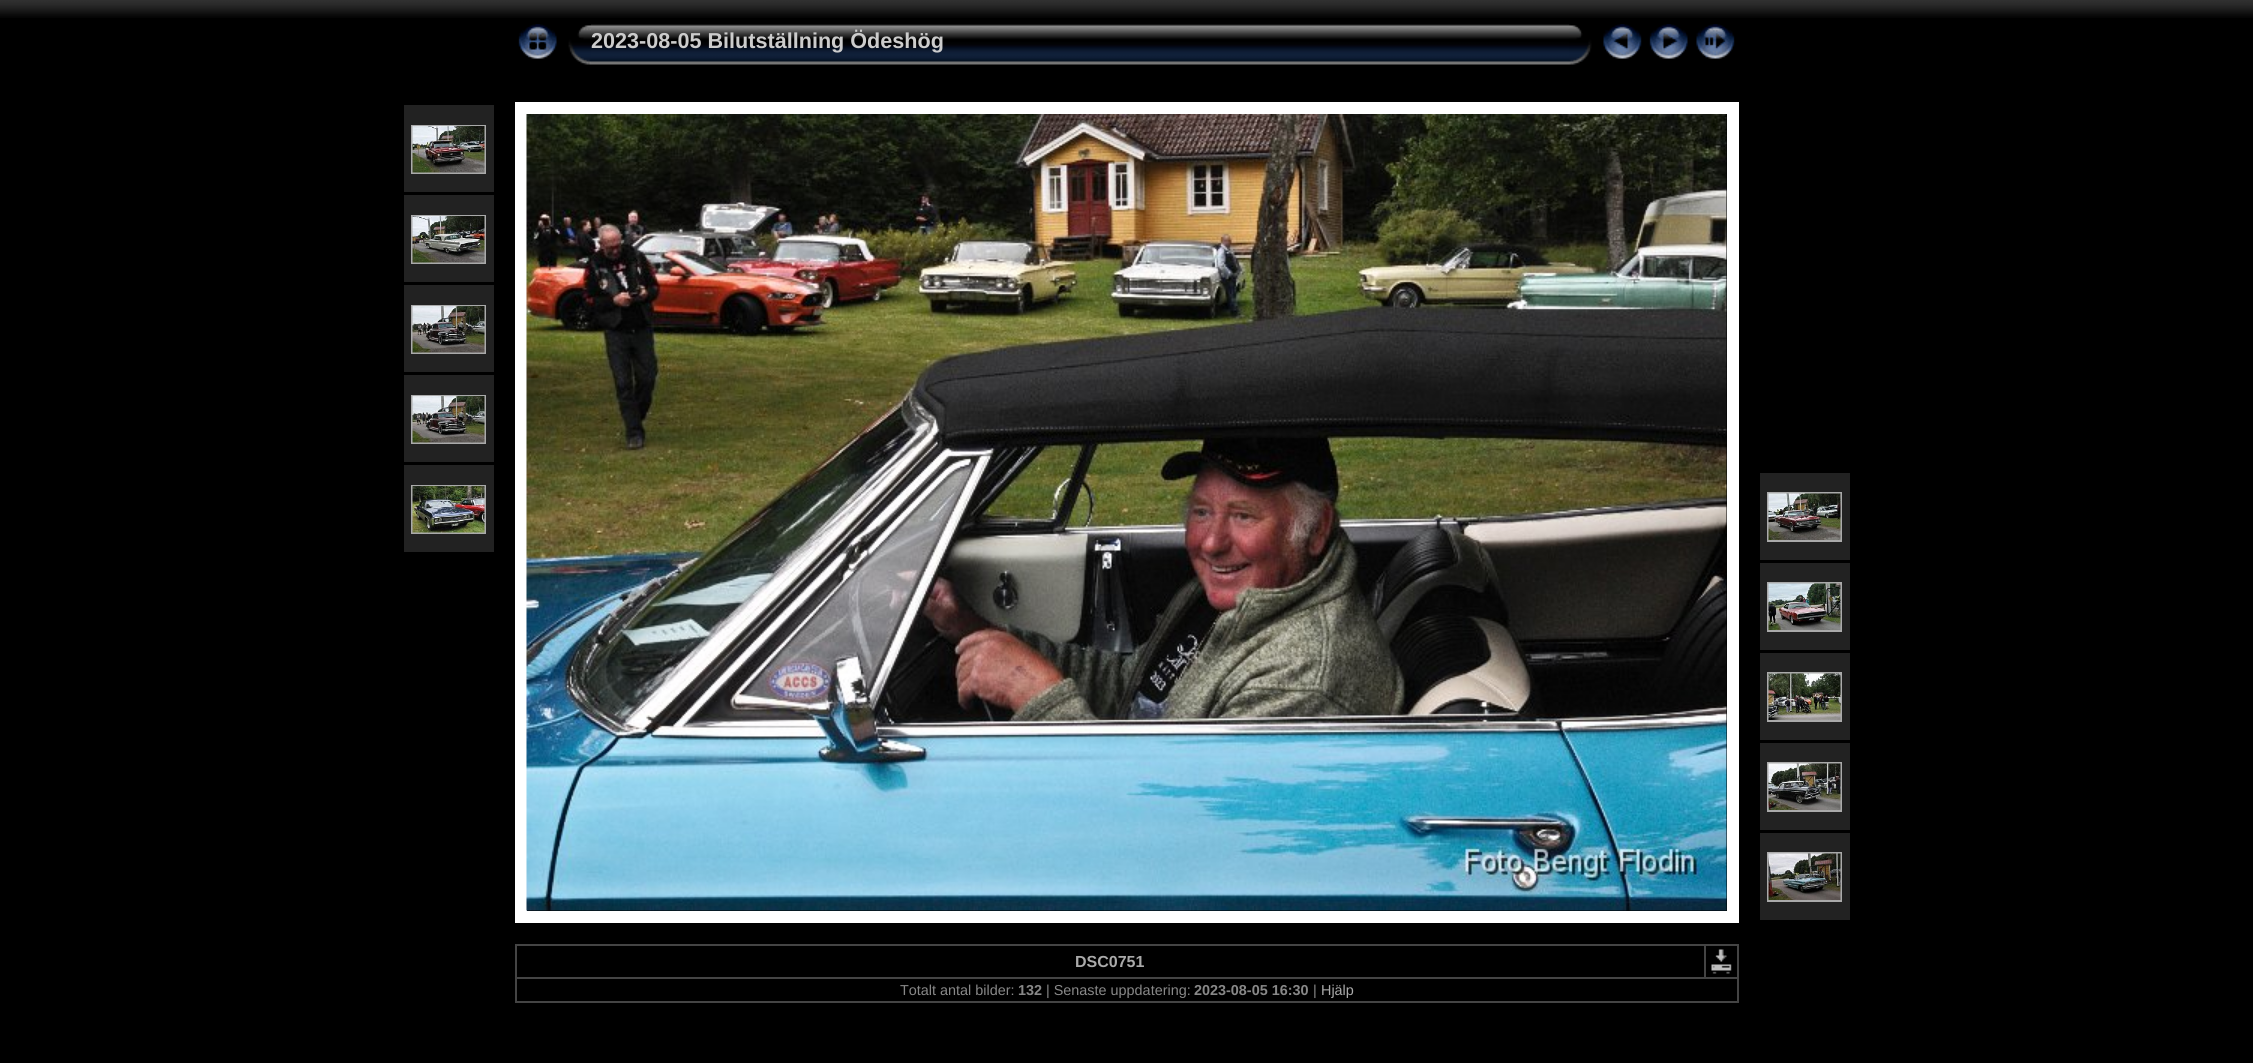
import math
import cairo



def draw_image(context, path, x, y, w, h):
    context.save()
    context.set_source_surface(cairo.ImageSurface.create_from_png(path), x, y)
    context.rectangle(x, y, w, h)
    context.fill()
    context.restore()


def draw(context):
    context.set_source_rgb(0, 0, 0)
    context.paint()
    draw_image(context, "images/1.png", 0, 0, 2253, 18)
    draw_image(context, "images/2.png", 518, 24, 39, 35)
    draw_image(context, "images/3.png", 568, 25, 23, 40)
    draw_image(context, "images/4.png", 591, 24, 978, 41)
    draw_image(context, "images/5.png", 1569, 24, 23, 41)
    draw_image(context, "images/6.png", 1603, 24, 39, 35)
    draw_image(context, "images/7.png", 1649, 24, 39, 35)
    draw_image(context, "images/8.png", 1696, 24, 39, 35)
    context.set_source_rgb(34 / 255, 34 / 255, 34 / 255)
    context.rectangle(404, 105, 90, 87)
    context.fill()
    context.rectangle(412, 126, 73, 47)
    context.set_source_rgb(170 / 255, 170 / 255, 170 / 255)
    context.stroke()
    draw_image(context, "images/9.png", 412, 126, 73, 47)
    context.set_source_rgb(34 / 255, 34 / 255, 34 / 255)
    context.rectangle(404, 195, 90, 87)
    context.fill()
    context.rectangle(412, 216, 73, 47)
    context.set_source_rgb(170 / 255, 170 / 255, 170 / 255)
    context.stroke()
    draw_image(context, "images/10.png", 412, 216, 73, 47)
    context.set_source_rgb(34 / 255, 34 / 255, 34 / 255)
    context.rectangle(404, 285, 90, 87)
    context.fill()
    context.rectangle(412, 306, 73, 47)
    context.set_source_rgb(170 / 255, 170 / 255, 170 / 255)
    context.stroke()
    draw_image(context, "images/11.png", 412, 306, 73, 47)
    context.set_source_rgb(34 / 255, 34 / 255, 34 / 255)
    context.rectangle(404, 375, 90, 87)
    context.fill()
    context.rectangle(412, 396, 73, 47)
    context.set_source_rgb(170 / 255, 170 / 255, 170 / 255)
    context.stroke()
    draw_image(context, "images/12.png", 412, 396, 73, 47)
    context.set_source_rgb(34 / 255, 34 / 255, 34 / 255)
    context.rectangle(404, 465, 90, 87)
    context.fill()
    context.rectangle(412, 486, 73, 47)
    context.set_source_rgb(170 / 255, 170 / 255, 170 / 255)
    context.stroke()
    draw_image(context, "images/13.png", 412, 486, 73, 47)
    context.rectangle(521, 108, 1212, 809)
    context.set_source_rgb(1, 1, 1)
    context.set_line_width(12)
    context.stroke()
    draw_image(context, "images/14.png", 526, 114, 1201, 797)
    context.set_source_rgb(34 / 255, 34 / 255, 34 / 255)
    context.rectangle(1760, 473, 90, 87)
    context.fill()
    context.rectangle(1768, 493, 73, 48)
    context.set_source_rgb(170 / 255, 170 / 255, 170 / 255)
    context.set_line_width(2)
    context.stroke()
    draw_image(context, "images/15.png", 1768, 493, 73, 47)
    context.set_source_rgb(34 / 255, 34 / 255, 34 / 255)
    context.rectangle(1760, 563, 90, 87)
    context.fill()
    context.rectangle(1768, 583, 73, 48)
    context.set_source_rgb(170 / 255, 170 / 255, 170 / 255)
    context.stroke()
    draw_image(context, "images/16.png", 1768, 583, 73, 47)
    context.set_source_rgb(34 / 255, 34 / 255, 34 / 255)
    context.rectangle(1760, 653, 90, 87)
    context.fill()
    context.rectangle(1768, 673, 73, 48)
    context.set_source_rgb(170 / 255, 170 / 255, 170 / 255)
    context.stroke()
    draw_image(context, "images/17.png", 1768, 673, 73, 47)
    context.set_source_rgb(34 / 255, 34 / 255, 34 / 255)
    context.rectangle(1760, 743, 90, 87)
    context.fill()
    context.rectangle(1768, 763, 73, 48)
    context.set_source_rgb(170 / 255, 170 / 255, 170 / 255)
    context.stroke()
    draw_image(context, "images/18.png", 1768, 763, 73, 47)
    context.set_source_rgb(34 / 255, 34 / 255, 34 / 255)
    context.rectangle(1760, 833, 90, 87)
    context.fill()
    context.rectangle(1768, 853, 73, 48)
    context.set_source_rgb(170 / 255, 170 / 255, 170 / 255)
    context.stroke()
    draw_image(context, "images/19.png", 1768, 853, 73, 47)
    context.set_source_rgb(68 / 255, 68 / 255, 68 / 255)
    context.rectangle(515, 944, 1224, 2)
    context.fill()
    context.rectangle(1737, 944, 2, 58)
    context.fill()
    context.rectangle(515, 1001, 1224, 2)
    context.fill()
    context.rectangle(515, 944, 2, 58)
    context.fill()
    context.rectangle(515, 977, 1224, 2)
    context.fill()
    context.rectangle(1704, 944, 2, 34)
    context.fill()
    draw_image(context, "images/20.png", 1711, 949, 21, 25)
    context.select_font_face("Liberation Sans", cairo.FontSlant.NORMAL, cairo.FontWeight.BOLD)
    context.set_font_size(21.6)
    context.set_source_rgb(204 / 255, 204 / 255, 204 / 255)
    context.move_to(591, 48)
    context.show_text("2023-08-05 Bilutställning Ödeshög")
    context.set_font_size(16)
    context.set_source_rgb(170 / 255, 170 / 255, 170 / 255)
    context.move_to(1075, 967)
    context.show_text("DSC0751")
    context.select_font_face("Liberation Sans")
    context.set_font_size(14.4)
    context.set_source_rgb(136 / 255, 136 / 255, 136 / 255)
    context.move_to(900, 995)
    context.show_text("Totalt antal bilder:")
    context.select_font_face("Liberation Sans", cairo.FontSlant.NORMAL, cairo.FontWeight.BOLD)
    context.move_to(1018, 995)
    context.show_text("132")
    context.select_font_face("Liberation Sans")
    context.move_to(1046, 995)
    context.show_text("| Senaste uppdatering:")
    context.select_font_face("Liberation Sans", cairo.FontSlant.NORMAL, cairo.FontWeight.BOLD)
    context.move_to(1194, 995)
    context.show_text("2023-08-05 16:30")
    context.select_font_face("Liberation Sans")
    context.move_to(1313, 995)
    context.show_text("|")
    context.set_source_rgb(170 / 255, 170 / 255, 170 / 255)
    context.move_to(1321, 995)
    context.show_text("Hjälp")


surface = cairo.ImageSurface(cairo.Format.RGB24, 2253, 1063)
context = cairo.Context(surface)
options = cairo.FontOptions()
options.set_hint_metrics(cairo.HintMetrics.OFF)
options.set_hint_style(cairo.HintStyle.NONE)
context.set_font_options(options)
context.set_miter_limit(4)
draw(context)
surface.write_to_png("out.png")
